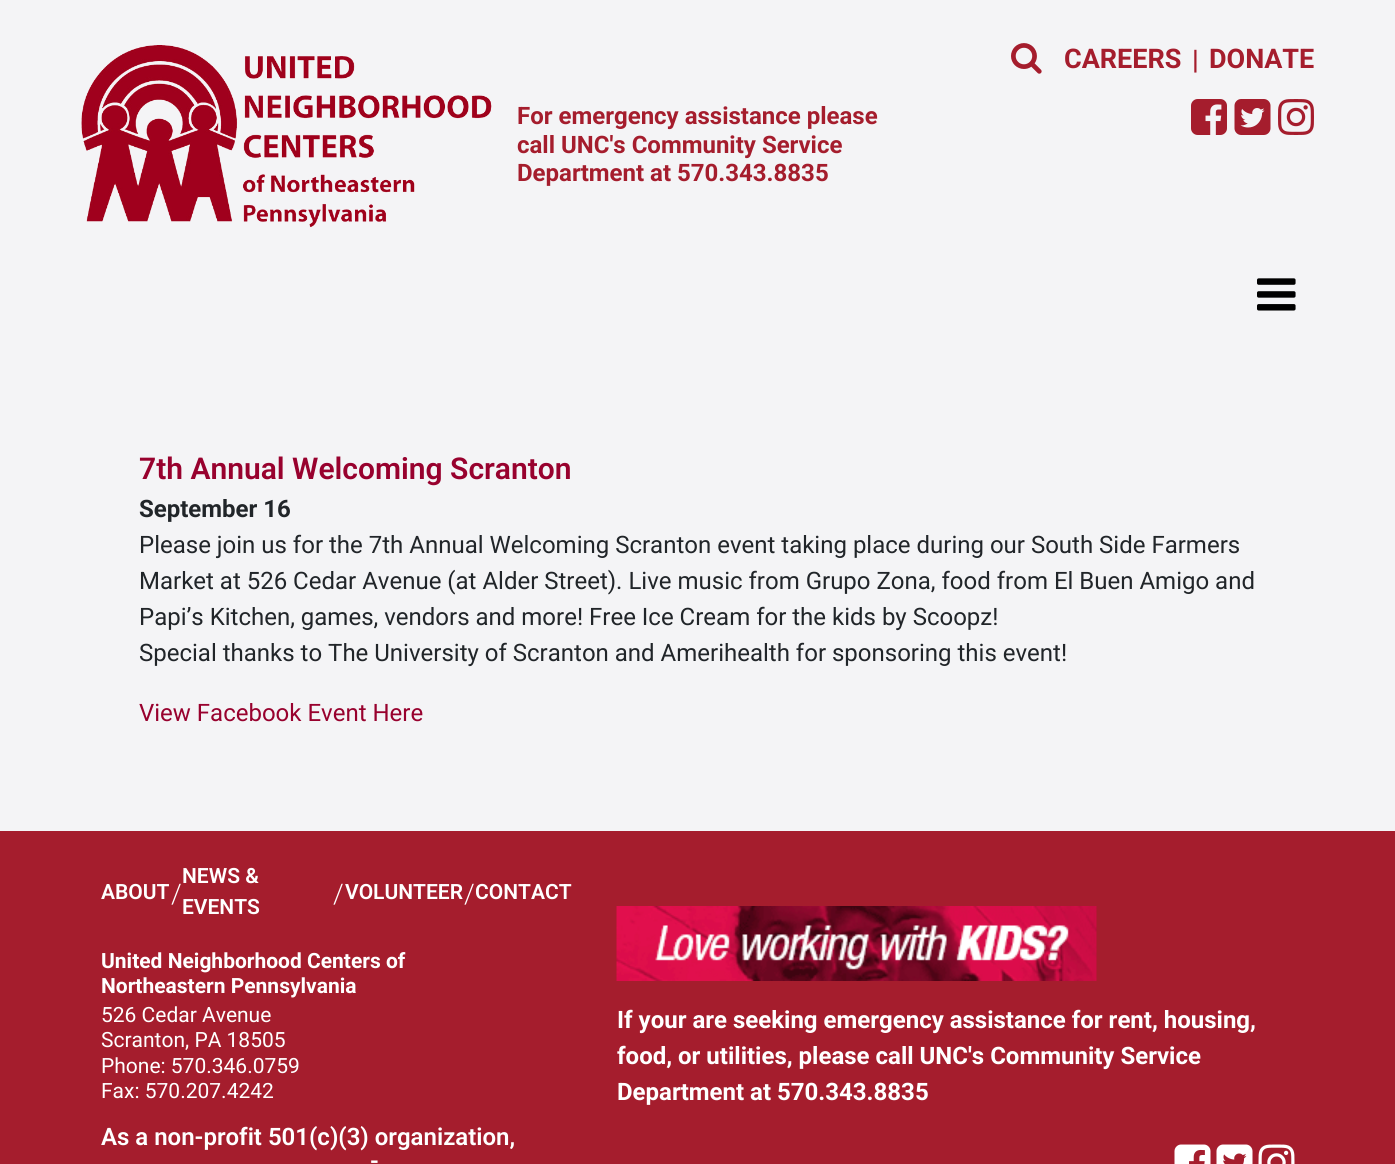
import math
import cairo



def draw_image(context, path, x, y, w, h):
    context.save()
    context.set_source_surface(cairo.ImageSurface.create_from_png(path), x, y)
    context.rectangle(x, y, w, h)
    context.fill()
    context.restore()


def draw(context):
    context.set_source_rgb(244 / 255, 244 / 255, 246 / 255)
    context.paint()
    draw_image(context, "images/1.png", 1011, 43, 31, 31)
    draw_image(context, "images/2.png", 1191, 99, 36, 36)
    draw_image(context, "images/3.png", 1234, 99, 37, 36)
    draw_image(context, "images/4.png", 1278, 99, 36, 36)
    draw_image(context, "images/5.png", 81, 45, 411, 183)
    draw_image(context, "images/6.png", 1257, 278, 39, 33)
    context.set_source_rgb(165 / 255, 29 / 255, 45 / 255)
    context.rectangle(0, 831, 1395, 333)
    context.fill()
    draw_image(context, "images/7.png", 616, 906, 481, 75)
    draw_image(context, "images/8.png", 1174, 1144, 37, 20)
    draw_image(context, "images/9.png", 1216, 1144, 37, 20)
    draw_image(context, "images/10.png", 1258, 1144, 37, 20)
    context.select_font_face("Roboto", cairo.FontSlant.NORMAL, cairo.FontWeight.BOLD)
    context.set_font_size(27)
    context.move_to(1064, 68)
    context.show_text("CAREERS")
    context.select_font_face("Roboto SemiBold")
    context.move_to(1192, 69)
    context.show_text("|")
    context.select_font_face("Roboto", cairo.FontSlant.NORMAL, cairo.FontWeight.BOLD)
    context.move_to(1209, 68)
    context.show_text("DONATE")
    context.set_font_size(24)
    context.move_to(517, 124)
    context.show_text("For emergency assistance please")
    context.move_to(517, 153)
    context.show_text("call UNC's Community Service")
    context.move_to(517, 181)
    context.show_text("Department at 570.343.8835")
    context.select_font_face("Roboto SemiBold")
    context.set_font_size(30)
    context.set_source_rgb(152 / 255, 1 / 255, 46 / 255)
    context.move_to(139, 479)
    context.show_text("7th Annual Welcoming Scranton")
    context.select_font_face("Roboto", cairo.FontSlant.NORMAL, cairo.FontWeight.BOLD)
    context.set_font_size(24)
    context.set_source_rgb(33 / 255, 37 / 255, 41 / 255)
    context.move_to(139, 517)
    context.show_text("September 16")
    context.select_font_face("Roboto")
    context.move_to(139, 553)
    context.show_text("Please join us for the 7th Annual Welcoming Scranton event taking place during our South Side Farmers")
    context.move_to(139, 589)
    context.show_text("Market at 526 Cedar Avenue (at Alder Street). Live music from Grupo Zona, food from El Buen Amigo and")
    context.move_to(139, 625)
    context.show_text("Papi’s Kitchen, games, vendors and more! Free Ice Cream for the kids by Scoopz!")
    context.move_to(139, 661)
    context.show_text("Special thanks to The University of Scranton and Amerihealth for sponsoring this event!")
    context.set_source_rgb(152 / 255, 1 / 255, 46 / 255)
    context.move_to(139, 721)
    context.show_text("View Facebook Event Here")
    context.select_font_face("Roboto SemiBold")
    context.set_font_size(21)
    context.set_source_rgb(1, 1, 1)
    context.move_to(101, 899)
    context.show_text("ABOUT")
    context.select_font_face("Roboto Light")
    context.set_font_size(27)
    context.move_to(171, 903)
    context.show_text("/")
    context.select_font_face("Roboto SemiBold")
    context.set_font_size(21)
    context.move_to(182, 883)
    context.show_text("NEWS &")
    context.move_to(182, 914)
    context.show_text("EVENTS")
    context.select_font_face("Roboto Light")
    context.set_font_size(27)
    context.move_to(333, 903)
    context.show_text("/")
    context.select_font_face("Roboto SemiBold")
    context.set_font_size(21)
    context.move_to(345, 899)
    context.show_text("VOLUNTEER")
    context.select_font_face("Roboto Light")
    context.set_font_size(27)
    context.move_to(464, 903)
    context.show_text("/")
    context.select_font_face("Roboto SemiBold")
    context.set_font_size(21)
    context.move_to(475, 899)
    context.show_text("CONTACT")
    context.select_font_face("Roboto", cairo.FontSlant.NORMAL, cairo.FontWeight.BOLD)
    context.move_to(101, 968)
    context.show_text("United Neighborhood Centers of")
    context.move_to(101, 993)
    context.show_text("Northeastern Pennsylvania")
    context.select_font_face("Roboto")
    context.move_to(101, 1022)
    context.show_text("526 Cedar Avenue")
    context.move_to(101, 1047)
    context.show_text("Scranton, PA 18505")
    context.move_to(101, 1073)
    context.show_text("Phone: 570.346.0759")
    context.move_to(101, 1098)
    context.show_text("Fax: 570.207.4242")
    context.select_font_face("Roboto SemiBold")
    context.set_font_size(24)
    context.move_to(101, 1145)
    context.show_text("As a non-profit 501(c)(3) organization,")
    context.move_to(370, 1169)
    context.show_text("-")
    context.select_font_face("Roboto", cairo.FontSlant.NORMAL, cairo.FontWeight.BOLD)
    context.move_to(617, 1028)
    context.show_text("If your are seeking emergency assistance for rent, housing,")
    context.move_to(617, 1064)
    context.show_text("food, or utilities, please call UNC's Community Service")
    context.move_to(617, 1100)
    context.show_text("Department at 570.343.8835")


surface = cairo.ImageSurface(cairo.Format.RGB24, 1395, 1164)
context = cairo.Context(surface)
options = cairo.FontOptions()
options.set_hint_metrics(cairo.HintMetrics.OFF)
options.set_hint_style(cairo.HintStyle.NONE)
context.set_font_options(options)
context.set_miter_limit(4)
draw(context)
surface.write_to_png("out.png")
